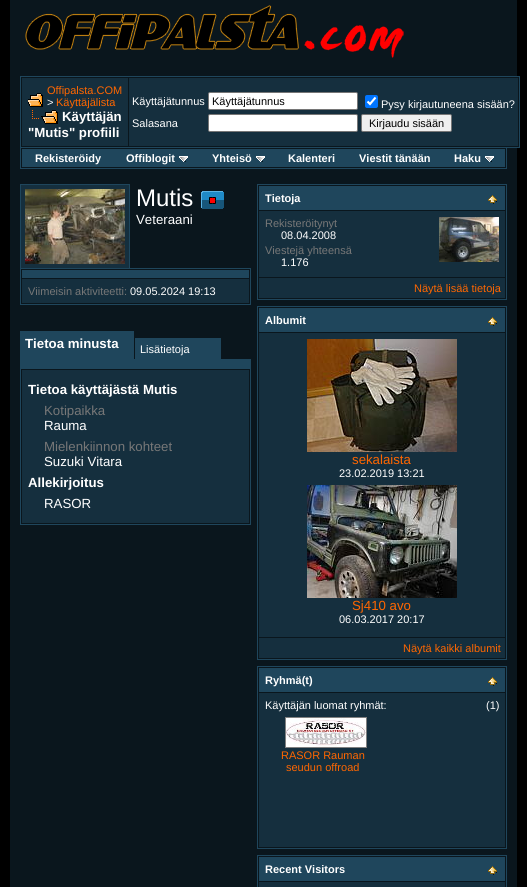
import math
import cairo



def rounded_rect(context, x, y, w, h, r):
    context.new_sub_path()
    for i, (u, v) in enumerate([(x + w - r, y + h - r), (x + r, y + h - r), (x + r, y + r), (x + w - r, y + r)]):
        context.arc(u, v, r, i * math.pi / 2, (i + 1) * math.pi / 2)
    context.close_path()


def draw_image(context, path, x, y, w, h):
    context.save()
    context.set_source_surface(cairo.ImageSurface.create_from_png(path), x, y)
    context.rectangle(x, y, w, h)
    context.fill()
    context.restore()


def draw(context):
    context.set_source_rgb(0, 0, 0)
    context.paint()
    context.set_source_rgb(10 / 255, 22 / 255, 29 / 255)
    context.rectangle(10, 0, 507, 887)
    context.fill()
    draw_image(context, "images/1.png", 25, 5, 379, 53)
    context.rectangle(517, 77, 2, 70)
    context.fill()
    context.rectangle(20.5, 76.5, 499, 71)
    context.set_source_rgb(31 / 255, 70 / 255, 92 / 255)
    context.set_line_width(1)
    context.stroke()
    context.set_source_rgb(21 / 255, 47 / 255, 62 / 255)
    context.rectangle(22, 78, 106, 68)
    context.fill()
    draw_image(context, "images/2.png", 28, 93, 15, 14)
    draw_image(context, "images/3.png", 32, 110, 26, 15)
    context.rectangle(129, 78, 389, 68)
    context.fill()
    context.set_source_rgb(1, 1, 1)
    rounded_rect(context, 208.5, 92.5, 149, 17, 1.5)
    context.fill_preserve()
    context.set_source_rgb(118 / 255, 118 / 255, 118 / 255)
    context.stroke()
    context.set_source_rgb(0, 117 / 255, 1)
    rounded_rect(context, 365, 95, 13, 13, 2)
    context.fill()
    context.new_path()
    context.move_to(367.5, 101.5)
    context.line_to(370, 104)
    context.line_to(375.5, 97.5)
    context.set_source_rgb(1, 1, 1)
    context.set_line_width(2.1)
    context.stroke()
    rounded_rect(context, 208.5, 114.5, 149, 17, 1.5)
    context.fill_preserve()
    context.set_source_rgb(118 / 255, 118 / 255, 118 / 255)
    context.set_line_width(1)
    context.stroke()
    context.set_source_rgb(239 / 255, 239 / 255, 239 / 255)
    rounded_rect(context, 361.5, 114.5, 90, 17, 1.5)
    context.fill_preserve()
    context.set_source_rgb(118 / 255, 118 / 255, 118 / 255)
    context.stroke()
    context.set_source_rgb(31 / 255, 70 / 255, 92 / 255)
    context.rectangle(506, 148, 1, 21)
    context.fill()
    context.rectangle(20, 168, 487, 1)
    context.fill()
    context.rectangle(20, 148, 1, 21)
    context.fill()
    context.rectangle(22, 149, 483, 18)
    context.fill()
    draw_image(context, "images/4.png", 179, 156, 9, 6)
    draw_image(context, "images/4.png", 256, 156, 9, 6)
    draw_image(context, "images/4.png", 485, 156, 9, 6)
    context.set_source_rgb(21 / 255, 47 / 255, 62 / 255)
    context.rectangle(21, 185, 108, 83)
    context.fill()
    context.set_source_rgb(31 / 255, 70 / 255, 92 / 255)
    context.rectangle(20, 184, 110, 1)
    context.fill()
    context.rectangle(129, 184, 1, 84)
    context.fill()
    context.rectangle(20, 184, 1, 84)
    context.fill()
    draw_image(context, "images/5.png", 25, 189, 100, 75)
    draw_image(context, "images/6.png", 201, 191, 23, 18)
    context.rectangle(20.5, 268.5, 230, 36)
    context.stroke()
    context.rectangle(22, 270, 227, 8)
    context.fill()
    context.set_source_rgb(21 / 255, 47 / 255, 62 / 255)
    context.rectangle(22, 279, 227, 24)
    context.fill()
    context.set_source_rgb(31 / 255, 70 / 255, 92 / 255)
    context.rectangle(20, 331, 114, 28)
    context.fill()
    context.rectangle(135, 338, 86, 21)
    context.fill()
    context.rectangle(20, 359, 231, 9)
    context.fill()
    context.rectangle(20.5, 368.5, 230, 156)
    context.stroke()
    context.set_source_rgb(21 / 255, 47 / 255, 62 / 255)
    context.rectangle(22, 370, 227, 153)
    context.fill()
    context.rectangle(257.5, 184.5, 249, 115)
    context.set_source_rgb(31 / 255, 70 / 255, 92 / 255)
    context.stroke()
    context.rectangle(259, 186, 246, 24)
    context.fill()
    draw_image(context, "images/7.png", 488, 195, 9, 9)
    context.set_source_rgb(21 / 255, 47 / 255, 62 / 255)
    context.rectangle(259, 211, 246, 66)
    context.fill()
    draw_image(context, "images/8.png", 439, 217, 60, 45)
    context.rectangle(259, 278, 246, 20)
    context.fill()
    context.rectangle(257.5, 306.5, 249, 353)
    context.set_source_rgb(31 / 255, 70 / 255, 92 / 255)
    context.stroke()
    context.rectangle(259, 308, 246, 24)
    context.fill()
    draw_image(context, "images/7.png", 488, 317, 9, 9)
    context.set_source_rgb(21 / 255, 47 / 255, 62 / 255)
    context.rectangle(259, 333, 246, 304)
    context.fill()
    draw_image(context, "images/9.png", 307, 339, 150, 113)
    draw_image(context, "images/10.png", 307, 485, 150, 113)
    context.rectangle(259, 638, 246, 20)
    context.fill()
    context.rectangle(257.5, 666.5, 249, 182)
    context.set_source_rgb(31 / 255, 70 / 255, 92 / 255)
    context.stroke()
    context.rectangle(259, 668, 246, 24)
    context.fill()
    draw_image(context, "images/7.png", 488, 677, 9, 9)
    context.set_source_rgb(21 / 255, 47 / 255, 62 / 255)
    context.rectangle(259, 693, 246, 154)
    context.fill()
    context.rectangle(285.5, 717.5, 81, 30)
    context.set_source_rgb(128 / 255, 128 / 255, 128 / 255)
    context.stroke()
    draw_image(context, "images/11.png", 286, 718, 80, 29)
    context.rectangle(257.5, 855.5, 249, 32)
    context.set_source_rgb(31 / 255, 70 / 255, 92 / 255)
    context.stroke()
    context.rectangle(259, 857, 246, 24)
    context.fill()
    draw_image(context, "images/7.png", 488, 866, 9, 9)
    context.set_source_rgb(21 / 255, 47 / 255, 62 / 255)
    context.rectangle(259, 882, 246, 5)
    context.fill()
    context.select_font_face("Liberation Sans")
    context.set_font_size(11)
    context.set_source_rgb(1, 102 / 255, 0)
    context.move_to(47, 94)
    context.show_text("Offipalsta.COM")
    context.set_source_rgb(1, 1, 1)
    context.move_to(47, 106)
    context.show_text(">")
    context.set_source_rgb(1, 102 / 255, 0)
    context.move_to(56, 106)
    context.show_text("Käyttäjälista")
    context.select_font_face("Liberation Sans", cairo.FontSlant.NORMAL, cairo.FontWeight.BOLD)
    context.set_font_size(13.25)
    context.set_source_rgb(1, 1, 1)
    context.move_to(62, 121)
    context.show_text("Käyttäjän")
    context.move_to(28, 137)
    context.show_text("\"Mutis\" profiili")
    context.select_font_face("Liberation Sans")
    context.set_font_size(11)
    context.move_to(132, 105)
    context.show_text("Käyttäjätunnus")
    context.save()
    context.rectangle(212, 95, 142, 12)
    context.clip()
    context.set_source_rgb(0, 0, 0)
    context.move_to(212, 105)
    context.show_text("Käyttäjätunnus")
    context.restore()
    context.move_to(381, 108)
    context.show_text("Pysy kirjautuneena sisään?")
    context.move_to(132, 127)
    context.show_text("Salasana")
    context.set_source_rgb(0, 0, 0)
    context.move_to(369, 127)
    context.show_text("Kirjaudu sisään")
    context.select_font_face("Liberation Sans", cairo.FontSlant.NORMAL, cairo.FontWeight.BOLD)
    context.set_source_rgb(1, 1, 1)
    context.move_to(35, 162)
    context.show_text("Rekisteröidy")
    context.move_to(126, 162)
    context.show_text("Offiblogit")
    context.move_to(212, 162)
    context.show_text("Yhteisö")
    context.move_to(288, 162)
    context.show_text("Kalenteri")
    context.move_to(359, 162)
    context.show_text("Viestit tänään")
    context.move_to(454, 162)
    context.show_text("Haku")
    context.select_font_face("Liberation Sans")
    context.set_font_size(24)
    context.move_to(136, 206)
    context.show_text("Mutis")
    context.set_font_size(13.25)
    context.move_to(136, 224)
    context.show_text("Veteraani")
    context.set_font_size(11)
    context.set_source_rgb(119 / 255, 119 / 255, 119 / 255)
    context.move_to(28, 295)
    context.show_text("Viimeisin aktiviteetti:")
    context.set_source_rgb(1, 1, 1)
    context.move_to(130, 295)
    context.show_text("09.05.2024 19:13")
    context.select_font_face("Liberation Sans", cairo.FontSlant.NORMAL, cairo.FontWeight.BOLD)
    context.set_font_size(13.25)
    context.move_to(25, 348)
    context.show_text("Tietoa minusta")
    context.select_font_face("Liberation Sans")
    context.set_font_size(11)
    context.move_to(140, 353)
    context.show_text("Lisätietoja")
    context.select_font_face("Liberation Sans", cairo.FontSlant.NORMAL, cairo.FontWeight.BOLD)
    context.set_font_size(13.25)
    context.move_to(28, 394)
    context.show_text("Tietoa käyttäjästä Mutis")
    context.select_font_face("Liberation Sans")
    context.set_source_rgb(119 / 255, 119 / 255, 119 / 255)
    context.move_to(44, 415)
    context.show_text("Kotipaikka")
    context.set_source_rgb(1, 1, 1)
    context.move_to(44, 430)
    context.show_text("Rauma")
    context.set_source_rgb(119 / 255, 119 / 255, 119 / 255)
    context.move_to(44, 451)
    context.show_text("Mielenkiinnon kohteet")
    context.set_source_rgb(1, 1, 1)
    context.move_to(44, 466)
    context.show_text("Suzuki Vitara")
    context.select_font_face("Liberation Sans", cairo.FontSlant.NORMAL, cairo.FontWeight.BOLD)
    context.move_to(28, 487)
    context.show_text("Allekirjoitus")
    context.select_font_face("Liberation Sans")
    context.move_to(44, 508)
    context.show_text("RASOR")
    context.select_font_face("Liberation Sans", cairo.FontSlant.NORMAL, cairo.FontWeight.BOLD)
    context.set_font_size(11)
    context.move_to(265, 202)
    context.show_text("Tietoja")
    context.select_font_face("Liberation Sans")
    context.set_source_rgb(119 / 255, 119 / 255, 119 / 255)
    context.move_to(265, 227)
    context.show_text("Rekisteröitynyt")
    context.set_source_rgb(1, 1, 1)
    context.move_to(281, 239)
    context.show_text("08.04.2008")
    context.set_source_rgb(119 / 255, 119 / 255, 119 / 255)
    context.move_to(265, 254)
    context.show_text("Viestejä yhteensä")
    context.set_source_rgb(1, 1, 1)
    context.move_to(281, 266)
    context.show_text("1.176")
    context.set_source_rgb(1, 102 / 255, 0)
    context.move_to(414, 292)
    context.show_text("Näytä lisää tietoja")
    context.select_font_face("Liberation Sans", cairo.FontSlant.NORMAL, cairo.FontWeight.BOLD)
    context.set_source_rgb(1, 1, 1)
    context.move_to(265, 324)
    context.show_text("Albumit")
    context.select_font_face("Liberation Sans")
    context.set_font_size(13.25)
    context.set_source_rgb(1, 102 / 255, 0)
    context.move_to(352, 464)
    context.show_text("sekalaista")
    context.set_font_size(11)
    context.set_source_rgb(1, 1, 1)
    context.move_to(339, 477)
    context.show_text("23.02.2019 13:21")
    context.set_font_size(13.25)
    context.set_source_rgb(1, 102 / 255, 0)
    context.move_to(352, 610)
    context.show_text("Sj410 avo")
    context.set_font_size(11)
    context.set_source_rgb(1, 1, 1)
    context.move_to(339, 623)
    context.show_text("06.03.2017 20:17")
    context.set_source_rgb(1, 102 / 255, 0)
    context.move_to(403, 652)
    context.show_text("Näytä kaikki albumit")
    context.select_font_face("Liberation Sans", cairo.FontSlant.NORMAL, cairo.FontWeight.BOLD)
    context.set_source_rgb(1, 1, 1)
    context.move_to(265, 684)
    context.show_text("Ryhmä(t)")
    context.select_font_face("Liberation Sans")
    context.move_to(265, 709)
    context.show_text("Käyttäjän luomat ryhmät:")
    context.move_to(486, 709)
    context.show_text("(1)")
    context.set_source_rgb(1, 102 / 255, 0)
    context.move_to(281, 759)
    context.show_text("RASOR Rauman")
    context.move_to(286, 771)
    context.show_text("seudun offroad")
    context.select_font_face("Liberation Sans", cairo.FontSlant.NORMAL, cairo.FontWeight.BOLD)
    context.set_source_rgb(1, 1, 1)
    context.move_to(265, 873)
    context.show_text("Recent Visitors")


surface = cairo.ImageSurface(cairo.Format.RGB24, 527, 887)
context = cairo.Context(surface)
options = cairo.FontOptions()
options.set_hint_metrics(cairo.HintMetrics.OFF)
options.set_hint_style(cairo.HintStyle.NONE)
context.set_font_options(options)
context.set_miter_limit(4)
draw(context)
surface.write_to_png("out.png")
